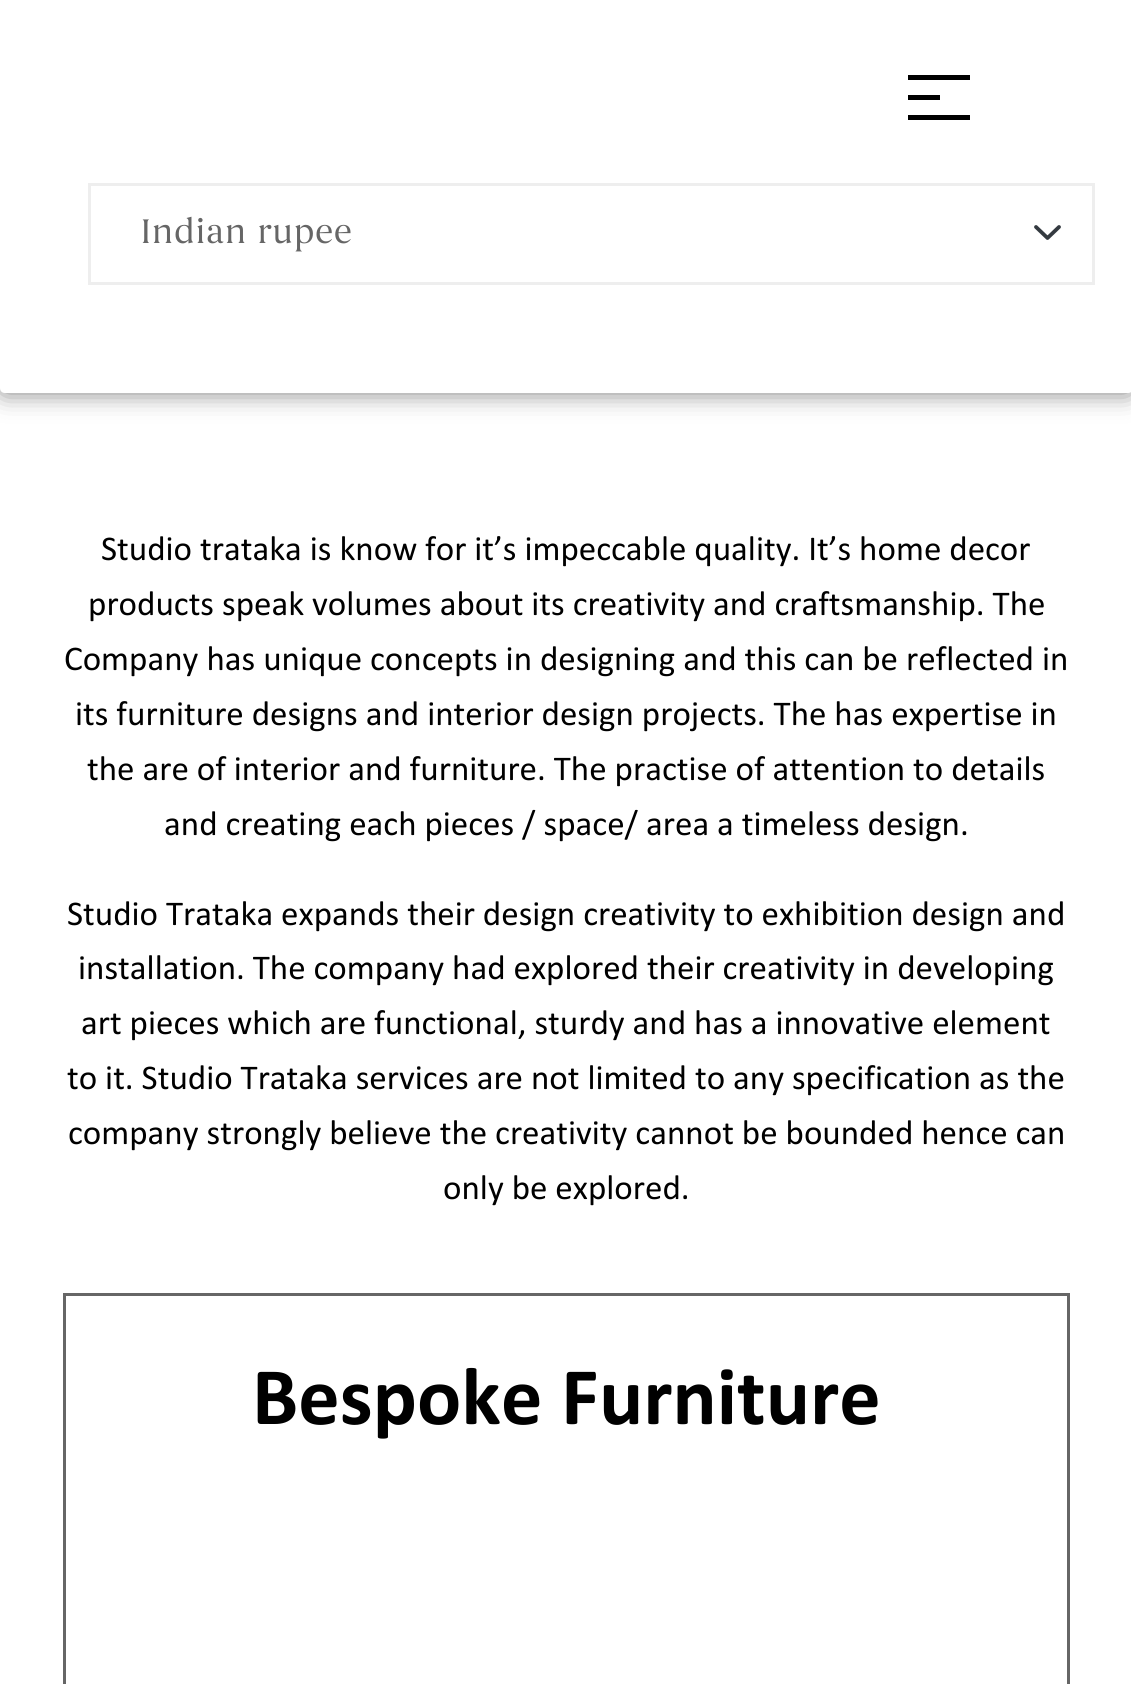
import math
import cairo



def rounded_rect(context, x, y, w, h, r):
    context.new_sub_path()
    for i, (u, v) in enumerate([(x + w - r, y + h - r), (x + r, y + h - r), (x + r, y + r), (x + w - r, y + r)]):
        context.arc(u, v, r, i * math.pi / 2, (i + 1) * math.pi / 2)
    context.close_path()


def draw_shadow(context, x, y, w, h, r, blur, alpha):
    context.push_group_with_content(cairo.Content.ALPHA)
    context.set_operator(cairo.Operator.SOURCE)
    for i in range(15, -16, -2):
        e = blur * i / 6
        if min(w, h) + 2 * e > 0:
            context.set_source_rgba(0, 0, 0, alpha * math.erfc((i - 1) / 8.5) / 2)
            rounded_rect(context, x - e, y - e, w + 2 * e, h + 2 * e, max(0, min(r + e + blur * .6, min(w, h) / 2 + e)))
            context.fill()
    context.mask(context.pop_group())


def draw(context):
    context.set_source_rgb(1, 1, 1)
    context.paint()
    context.set_source_rgb(0, 0, 0)
    draw_shadow(context, 0, -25, 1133, 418, 5, 12.5, 0.5)
    context.set_source_rgb(1, 1, 1)
    context.new_path()
    context.move_to(0, -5)
    context.line_to(1128, -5)
    context.curve_to(1131, -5, 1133, -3, 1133, 0)
    context.line_to(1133, 388)
    context.curve_to(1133, 391, 1131, 393, 1128, 393)
    context.line_to(5, 393)
    context.curve_to(2, 393, 0, 391, 0, 388)
    context.close_path()
    context.fill()
    context.set_source_rgb(0, 0, 0)
    context.rectangle(908, 75, 62, 5)
    context.fill()
    context.rectangle(908, 95, 32, 5)
    context.fill()
    context.rectangle(908, 115, 62, 5)
    context.fill()
    context.new_path()
    context.move_to(1036, 227)
    context.line_to(1047.5, 238)
    context.line_to(1059, 227)
    context.set_source_rgb(52 / 255, 58 / 255, 64 / 255)
    context.set_line_width(3.8)
    context.set_line_cap(cairo.LineCap.ROUND)
    context.set_line_join(cairo.LineJoin.ROUND)
    context.stroke()
    context.rectangle(89.5, 184.5, 1004, 99)
    context.set_source_rgb(238 / 255, 238 / 255, 238 / 255)
    context.set_line_width(3)
    context.set_line_cap(cairo.LineCap.BUTT)
    context.set_line_join(cairo.LineJoin.MITER)
    context.stroke()
    context.rectangle(64.5, 1294.5, 1004, 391)
    context.set_source_rgb(102 / 255, 102 / 255, 102 / 255)
    context.stroke()
    context.select_font_face("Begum")
    context.set_font_size(35)
    context.move_to(140, 243)
    context.show_text("Indian rupee")
    context.select_font_face("Calibri")
    context.set_source_rgb(0, 0, 0)
    context.move_to(101, 560)
    context.show_text("Studio trataka is know for it’s impeccable quality. It’s home decor")
    context.move_to(88, 615)
    context.show_text("products speak volumes about its creativity and craftsmanship. The")
    context.move_to(64, 670)
    context.show_text("Company has unique concepts in designing and this can be reflected in")
    context.move_to(75, 725)
    context.show_text("its furniture designs and interior design projects. The has expertise in")
    context.move_to(87, 780)
    context.show_text("the are of interior and furniture. The practise of attention to details")
    context.move_to(164, 835)
    context.show_text("and creating each pieces / space/ area a timeless design.")
    context.move_to(67, 925)
    context.show_text("Studio Trataka expands their design creativity to exhibition design and")
    context.move_to(78, 979)
    context.show_text("installation. The company had explored their creativity in developing")
    context.move_to(81, 1034)
    context.show_text("art pieces which are functional, sturdy and has a innovative element")
    context.move_to(67, 1089)
    context.show_text("to it. Studio Trataka services are not limited to any specification as the")
    context.move_to(68, 1144)
    context.show_text("company strongly believe the creativity cannot be bounded hence can")
    context.move_to(443, 1199)
    context.show_text("only be explored.")
    context.select_font_face("Calibri", cairo.FontSlant.NORMAL, cairo.FontWeight.BOLD)
    context.set_font_size(82.5)
    context.move_to(252, 1424)
    context.show_text("Bespoke Furniture")


surface = cairo.ImageSurface(cairo.Format.RGB24, 1131, 1684)
context = cairo.Context(surface)
options = cairo.FontOptions()
options.set_hint_metrics(cairo.HintMetrics.OFF)
options.set_hint_style(cairo.HintStyle.NONE)
context.set_font_options(options)
context.set_miter_limit(4)
draw(context)
surface.write_to_png("out.png")
